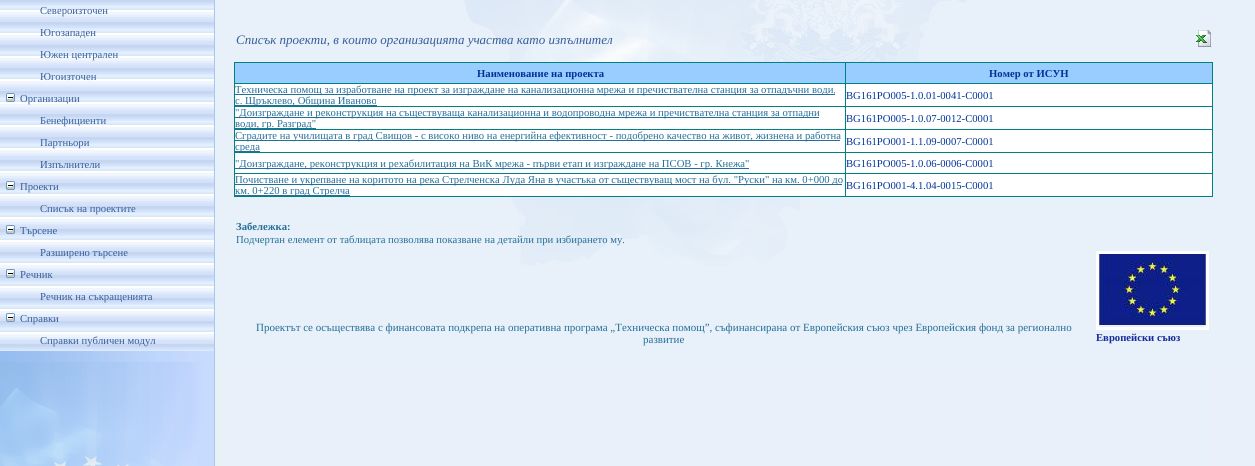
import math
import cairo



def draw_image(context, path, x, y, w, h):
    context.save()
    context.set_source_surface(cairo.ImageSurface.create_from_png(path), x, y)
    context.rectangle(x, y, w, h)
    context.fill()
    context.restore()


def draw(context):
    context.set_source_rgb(1, 1, 1)
    context.paint()
    draw_image(context, "images/1.png", 0, 351, 1255, 115)
    context.set_source_rgb(232 / 255, 240 / 255, 249 / 255)
    context.rectangle(215, 0, 1040, 369)
    context.fill()
    draw_image(context, "images/2.png", 463, 0, 504, 266)
    context.set_source_rgb(199 / 255, 219 / 255, 254 / 255)
    context.rectangle(209, 351, 5, 18)
    context.fill()
    context.set_source_rgb(168 / 255, 199 / 255, 236 / 255)
    context.rectangle(214, 0, 1, 369)
    context.fill()
    draw_image(context, "images/3.png", 0, 0, 214, 351)
    draw_image(context, "images/4.png", 6, 93, 9, 9)
    draw_image(context, "images/4.png", 6, 181, 9, 9)
    draw_image(context, "images/4.png", 6, 225, 9, 9)
    draw_image(context, "images/4.png", 6, 269, 9, 9)
    draw_image(context, "images/4.png", 6, 313, 9, 9)
    draw_image(context, "images/5.png", 0, 362, 210, 104)
    draw_image(context, "images/6.png", 1196, 30, 15, 17)
    context.set_source_rgb(0, 128 / 255, 128 / 255)
    context.rectangle(234, 62, 979, 1)
    context.fill()
    context.rectangle(1212, 62, 1, 135)
    context.fill()
    context.rectangle(234, 196, 979, 1)
    context.fill()
    context.rectangle(234, 62, 1, 135)
    context.fill()
    context.set_source_rgb(153 / 255, 204 / 255, 1)
    context.rectangle(235, 63, 977, 20)
    context.fill()
    context.set_source_rgb(0, 128 / 255, 128 / 255)
    context.rectangle(845, 83, 368, 1)
    context.fill()
    context.rectangle(845, 106, 368, 1)
    context.fill()
    context.rectangle(845, 129, 368, 1)
    context.fill()
    context.rectangle(845, 152, 368, 1)
    context.fill()
    context.rectangle(845, 173, 368, 1)
    context.fill()
    context.rectangle(845, 173, 1, 24)
    context.fill()
    context.rectangle(234, 173, 612, 1)
    context.fill()
    context.rectangle(845, 152, 1, 22)
    context.fill()
    context.rectangle(234, 152, 612, 1)
    context.fill()
    context.rectangle(845, 129, 1, 24)
    context.fill()
    context.rectangle(234, 129, 612, 1)
    context.fill()
    context.rectangle(845, 106, 1, 24)
    context.fill()
    context.rectangle(234, 106, 612, 1)
    context.fill()
    context.rectangle(845, 83, 1, 24)
    context.fill()
    context.rectangle(234, 83, 612, 1)
    context.fill()
    context.rectangle(845, 62, 1, 22)
    context.fill()
    context.set_source_rgb(1, 1, 1)
    context.rectangle(235, 84, 610, 22)
    context.fill()
    context.set_source_rgb(36 / 255, 110 / 255, 153 / 255)
    context.rectangle(235, 94, 600, 1)
    context.fill()
    context.rectangle(235, 105, 142, 1)
    context.fill()
    context.set_source_rgb(1, 1, 1)
    context.rectangle(846, 84, 366, 22)
    context.fill()
    context.rectangle(235, 107, 610, 22)
    context.fill()
    context.set_source_rgb(36 / 255, 110 / 255, 153 / 255)
    context.rectangle(235, 117, 584, 1)
    context.fill()
    context.rectangle(235, 128, 81, 1)
    context.fill()
    context.set_source_rgb(1, 1, 1)
    context.rectangle(846, 107, 366, 22)
    context.fill()
    context.rectangle(235, 130, 610, 22)
    context.fill()
    context.set_source_rgb(36 / 255, 110 / 255, 153 / 255)
    context.rectangle(235, 140, 605, 1)
    context.fill()
    context.rectangle(235, 151, 25, 1)
    context.fill()
    context.set_source_rgb(1, 1, 1)
    context.rectangle(846, 130, 366, 22)
    context.fill()
    context.rectangle(235, 153, 610, 20)
    context.fill()
    context.set_source_rgb(36 / 255, 110 / 255, 153 / 255)
    context.rectangle(235, 168, 514, 1)
    context.fill()
    context.set_source_rgb(1, 1, 1)
    context.rectangle(846, 153, 366, 20)
    context.fill()
    context.rectangle(235, 174, 610, 22)
    context.fill()
    context.set_source_rgb(36 / 255, 110 / 255, 153 / 255)
    context.rectangle(235, 184, 607, 1)
    context.fill()
    context.rectangle(235, 195, 115, 1)
    context.fill()
    context.set_source_rgb(1, 1, 1)
    context.rectangle(846, 174, 366, 22)
    context.fill()
    context.rectangle(1097.5, 252.5, 110, 76)
    context.set_line_width(3)
    context.stroke()
    draw_image(context, "images/7.png", 1099, 254, 107, 71)
    context.select_font_face("Liberation Serif")
    context.set_font_size(10.67)
    context.set_source_rgb(54 / 255, 93 / 255, 152 / 255)
    context.move_to(40, 14)
    context.show_text("Североизточен")
    context.move_to(40, 36)
    context.show_text("Югозападен")
    context.move_to(40, 58)
    context.show_text("Южен централен")
    context.move_to(40, 80)
    context.show_text("Югоизточен")
    context.move_to(20, 102)
    context.show_text("Организации")
    context.move_to(40, 124)
    context.show_text("Бенефициенти")
    context.move_to(40, 146)
    context.show_text("Партньори")
    context.move_to(40, 168)
    context.show_text("Изпълнители")
    context.move_to(20, 190)
    context.show_text("Проекти")
    context.move_to(40, 212)
    context.show_text("Списък на проектите")
    context.move_to(20, 234)
    context.show_text("Търсене")
    context.move_to(40, 256)
    context.show_text("Разширено търсене")
    context.move_to(20, 278)
    context.show_text("Речник")
    context.move_to(40, 300)
    context.show_text("Речник на съкращенията")
    context.move_to(20, 322)
    context.show_text("Справки")
    context.move_to(40, 344)
    context.show_text("Справки публичен модул")
    context.select_font_face("Liberation Serif", cairo.FontSlant.ITALIC)
    context.set_font_size(13)
    context.move_to(236, 44)
    context.show_text("Списък проекти, в които организацията участва като изпълнител")
    context.select_font_face("Liberation Serif", cairo.FontSlant.NORMAL, cairo.FontWeight.BOLD)
    context.set_font_size(10.67)
    context.set_source_rgb(0, 51 / 255, 153 / 255)
    context.move_to(477, 77)
    context.show_text("Наименование на проекта")
    context.move_to(989, 77)
    context.show_text("Номер от ИСУН")
    context.select_font_face("Liberation Serif")
    context.set_source_rgb(36 / 255, 110 / 255, 153 / 255)
    context.move_to(235, 93)
    context.show_text("Техническа помощ за изработване на проект за изграждане на канализационна мрежа и пречиствателна станция за отпадъчни води,")
    context.move_to(235, 104)
    context.show_text("с. Щръклево, Община Иваново")
    context.set_source_rgb(0, 51 / 255, 153 / 255)
    context.move_to(846, 99)
    context.show_text("BG161PO005-1.0.01-0041-C0001")
    context.set_source_rgb(36 / 255, 110 / 255, 153 / 255)
    context.move_to(235, 116)
    context.show_text("\"Доизграждане и реконструкция на съществуваща канализационна и водопроводна мрежа и пречиствателна станция за отпадни")
    context.move_to(235, 127)
    context.show_text("води, гр. Разград\"")
    context.set_source_rgb(0, 51 / 255, 153 / 255)
    context.move_to(846, 122)
    context.show_text("BG161PO005-1.0.07-0012-C0001")
    context.set_source_rgb(36 / 255, 110 / 255, 153 / 255)
    context.move_to(235, 139)
    context.show_text("Сградите на училищата в град Свищов - с високо ниво на енергийна ефективност - подобрено качество на живот, жизнена и работна")
    context.move_to(235, 150)
    context.show_text("среда")
    context.set_source_rgb(0, 51 / 255, 153 / 255)
    context.move_to(846, 145)
    context.show_text("BG161PO001-1.1.09-0007-C0001")
    context.set_source_rgb(36 / 255, 110 / 255, 153 / 255)
    context.move_to(235, 167)
    context.show_text("\"Доизграждане, реконструкция и рехабилитация на ВиК мрежа - първи етап и изграждане на ПСОВ - гр. Кнежа\"")
    context.set_source_rgb(0, 51 / 255, 153 / 255)
    context.move_to(846, 167)
    context.show_text("BG161PO005-1.0.06-0006-C0001")
    context.set_source_rgb(36 / 255, 110 / 255, 153 / 255)
    context.move_to(235, 183)
    context.show_text("Почистване и укрепване на коритото на река Стрелченска Луда Яна в участъка от съществуващ мост на бул. \"Руски\" на км. 0+000 до")
    context.move_to(235, 194)
    context.show_text("км. 0+220 в град Стрелча")
    context.set_source_rgb(0, 51 / 255, 153 / 255)
    context.move_to(846, 189)
    context.show_text("BG161PO001-4.1.04-0015-C0001")
    context.select_font_face("Liberation Serif", cairo.FontSlant.NORMAL, cairo.FontWeight.BOLD)
    context.set_source_rgb(36 / 255, 110 / 255, 153 / 255)
    context.move_to(236, 230)
    context.show_text("Забележка:")
    context.select_font_face("Liberation Serif")
    context.move_to(236, 243)
    context.show_text("Подчертан елемент от таблицата позволява показване на детайли при избирането му.")
    context.set_font_size(11)
    context.move_to(256, 331)
    context.show_text("Проектът се осъществява с финансовата подкрепа на оперативна програма „Техническа помощ”, съфинансирана от Европейския съюз чрез Европейския фонд за регионално")
    context.move_to(643, 343)
    context.show_text("развитие")
    context.select_font_face("Liberation Serif", cairo.FontSlant.NORMAL, cairo.FontWeight.BOLD)
    context.set_font_size(10.67)
    context.set_source_rgb(20 / 255, 41 / 255, 155 / 255)
    context.move_to(1096, 341)
    context.show_text("Европейски съюз")


surface = cairo.ImageSurface(cairo.Format.RGB24, 1255, 466)
context = cairo.Context(surface)
options = cairo.FontOptions()
options.set_hint_metrics(cairo.HintMetrics.OFF)
options.set_hint_style(cairo.HintStyle.NONE)
context.set_font_options(options)
context.set_miter_limit(4)
draw(context)
surface.write_to_png("out.png")
